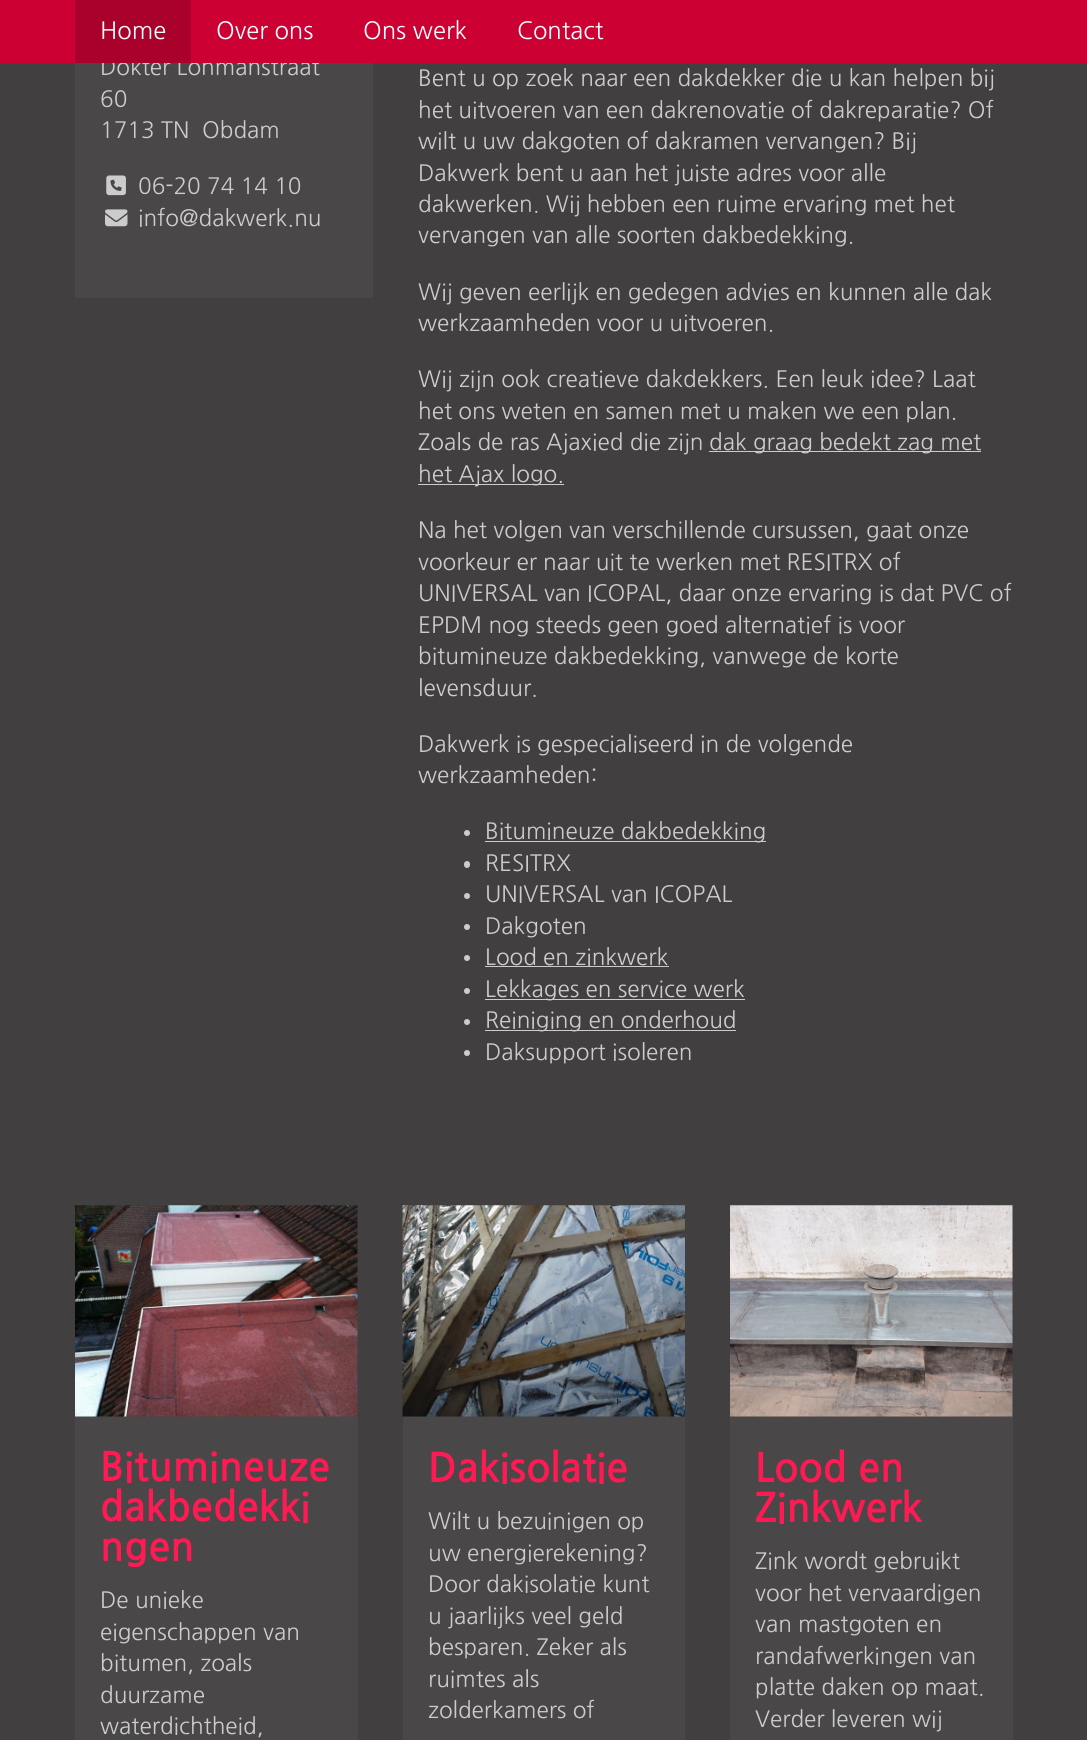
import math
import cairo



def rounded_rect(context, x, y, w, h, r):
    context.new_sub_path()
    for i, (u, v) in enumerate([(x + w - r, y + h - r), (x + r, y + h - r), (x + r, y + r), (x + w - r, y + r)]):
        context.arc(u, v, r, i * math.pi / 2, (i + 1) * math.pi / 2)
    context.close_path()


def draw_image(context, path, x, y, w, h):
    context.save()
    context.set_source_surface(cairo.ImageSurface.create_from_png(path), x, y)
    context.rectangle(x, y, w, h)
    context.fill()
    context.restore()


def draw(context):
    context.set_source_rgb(65 / 255, 63 / 255, 64 / 255)
    context.paint()
    context.set_source_rgb(73 / 255, 71 / 255, 72 / 255)
    context.rectangle(75, 63, 298, 235)
    context.fill()
    draw_image(context, "images/1.png", 106, 175, 20, 21)
    draw_image(context, "images/2.png", 105, 209, 23, 18)
    context.set_source_rgb(204 / 255, 204 / 255, 204 / 255)
    context.rectangle(709, 451, 272, 1)
    context.fill()
    context.rectangle(418, 484, 146, 1)
    context.fill()
    context.arc(467, 833, 3, 0, 2 * math.pi)
    context.fill()
    context.rectangle(485, 841, 281, 1)
    context.fill()
    rounded_rect(context, 464, 861, 6, 7, 3)
    context.fill()
    context.arc(467, 896, 3, 0, 2 * math.pi)
    context.fill()
    context.arc(467, 927, 3, 0, 2 * math.pi)
    context.fill()
    context.arc(467, 958, 3, 0, 2 * math.pi)
    context.fill()
    context.rectangle(485, 966, 184, 1)
    context.fill()
    context.arc(467, 991, 3, 0, 2 * math.pi)
    context.fill()
    context.rectangle(485, 999, 260, 1)
    context.fill()
    context.arc(467, 1022, 3, 0, 2 * math.pi)
    context.fill()
    context.rectangle(485, 1030, 251, 1)
    context.fill()
    context.arc(467, 1053, 3, 0, 2 * math.pi)
    context.fill()
    context.set_source_rgb(73 / 255, 71 / 255, 72 / 255)
    context.rectangle(75, 1416, 283, 324)
    context.fill()
    draw_image(context, "images/3.png", 75, 1205, 283, 212)
    context.rectangle(403, 1416, 282, 324)
    context.fill()
    draw_image(context, "images/4.png", 402, 1205, 283, 212)
    context.rectangle(730, 1416, 283, 324)
    context.fill()
    draw_image(context, "images/5.png", 730, 1205, 283, 212)
    context.select_font_face("NanumGothic")
    context.set_font_size(22.5)
    context.set_source_rgb(204 / 255, 204 / 255, 204 / 255)
    context.move_to(100, 75)
    context.show_text("Dokter Lohmanstraat")
    context.set_source_rgb(204 / 255, 0, 51 / 255)
    context.rectangle(0, 0, 1087, 63)
    context.fill()
    context.set_font_size(23.75)
    context.set_source_rgb(1, 1, 1)
    context.move_to(517, 39)
    context.show_text("Contact")
    context.move_to(363, 39)
    context.show_text("Ons werk")
    context.move_to(216, 39)
    context.show_text("Over ons")
    context.set_source_rgb(169 / 255, 1 / 255, 43 / 255)
    context.rectangle(75, 0, 116, 63)
    context.fill()
    context.set_source_rgb(1, 1, 1)
    context.move_to(100, 39)
    context.show_text("Home")
    context.set_font_size(22.5)
    context.set_source_rgb(204 / 255, 204 / 255, 204 / 255)
    context.move_to(100, 107)
    context.show_text("60")
    context.move_to(100, 138)
    context.show_text("1713 TN  Obdam")
    context.move_to(138, 194)
    context.show_text("06-20 74 14 10")
    context.move_to(138, 226)
    context.show_text("info@dakwerk.nu")
    context.move_to(418, 86)
    context.show_text("Bent u op zoek naar een dakdekker die u kan helpen bij")
    context.move_to(418, 118)
    context.show_text("het uitvoeren van een dakrenovatie of dakreparatie? Of")
    context.move_to(418, 149)
    context.show_text("wilt u uw dakgoten of dakramen vervangen? Bij")
    context.move_to(418, 181)
    context.show_text("Dakwerk bent u aan het juiste adres voor alle")
    context.move_to(418, 212)
    context.show_text("dakwerken. Wij hebben een ruime ervaring met het")
    context.move_to(418, 243)
    context.show_text("vervangen van alle soorten dakbedekking.")
    context.move_to(418, 300)
    context.show_text("Wij geven eerlijk en gedegen advies en kunnen alle dak")
    context.move_to(418, 331)
    context.show_text("werkzaamheden voor u uitvoeren.")
    context.move_to(418, 387)
    context.show_text("Wij zijn ook creatieve dakdekkers. Een leuk idee? Laat")
    context.move_to(418, 419)
    context.show_text("het ons weten en samen met u maken we een plan.")
    context.move_to(418, 450)
    context.show_text("Zoals de ras Ajaxied die zijn")
    context.move_to(709, 450)
    context.show_text("dak graag bedekt zag met")
    context.move_to(418, 482)
    context.show_text("het Ajax logo.")
    context.move_to(418, 538)
    context.show_text("Na het volgen van verschillende cursussen, gaat onze")
    context.move_to(418, 570)
    context.show_text("voorkeur er naar uit te werken met RESITRX of")
    context.move_to(418, 601)
    context.show_text("UNIVERSAL van ICOPAL, daar onze ervaring is dat PVC of")
    context.move_to(418, 633)
    context.show_text("EPDM nog steeds geen goed alternatief is voor")
    context.move_to(418, 664)
    context.show_text("bitumineuze dakbedekking, vanwege de korte")
    context.move_to(418, 696)
    context.show_text("levensduur.")
    context.move_to(418, 752)
    context.show_text("Dakwerk is gespecialiseerd in de volgende")
    context.move_to(418, 783)
    context.show_text("werkzaamheden:")
    context.move_to(485, 839)
    context.show_text("Bitumineuze dakbedekking")
    context.move_to(485, 871)
    context.show_text("RESITRX")
    context.move_to(485, 902)
    context.show_text("UNIVERSAL van ICOPAL")
    context.move_to(485, 934)
    context.show_text("Dakgoten")
    context.move_to(485, 965)
    context.show_text("Lood en zinkwerk")
    context.move_to(485, 997)
    context.show_text("Lekkages en service werk")
    context.move_to(485, 1028)
    context.show_text("Reiniging en onderhoud")
    context.move_to(485, 1060)
    context.show_text("Daksupport isoleren")
    context.select_font_face("NanumGothic", cairo.FontSlant.NORMAL, cairo.FontWeight.BOLD)
    context.set_font_size(40)
    context.set_source_rgb(1, 26 / 255, 83 / 255)
    context.move_to(100, 1481)
    context.show_text("Bitumineuze")
    context.move_to(100, 1521)
    context.show_text("dakbedekki")
    context.move_to(100, 1561)
    context.show_text("ngen")
    context.select_font_face("NanumGothic")
    context.set_font_size(22.5)
    context.set_source_rgb(204 / 255, 204 / 255, 204 / 255)
    context.move_to(100, 1608)
    context.show_text("De unieke")
    context.move_to(100, 1640)
    context.show_text("eigenschappen van")
    context.move_to(100, 1671)
    context.show_text("bitumen, zoals")
    context.move_to(100, 1703)
    context.show_text("duurzame")
    context.move_to(100, 1734)
    context.show_text("waterdichtheid,")
    context.select_font_face("NanumGothic", cairo.FontSlant.NORMAL, cairo.FontWeight.BOLD)
    context.set_font_size(40)
    context.set_source_rgb(1, 26 / 255, 83 / 255)
    context.move_to(428, 1482)
    context.show_text("Dakisolatie")
    context.select_font_face("NanumGothic")
    context.set_font_size(22.5)
    context.set_source_rgb(204 / 255, 204 / 255, 204 / 255)
    context.move_to(428, 1529)
    context.show_text("Wilt u bezuinigen op")
    context.move_to(428, 1561)
    context.show_text("uw energierekening?")
    context.move_to(428, 1592)
    context.show_text("Door dakisolatie kunt")
    context.move_to(428, 1624)
    context.show_text("u jaarlijks veel geld")
    context.move_to(428, 1655)
    context.show_text("besparen. Zeker als")
    context.move_to(428, 1687)
    context.show_text("ruimtes als")
    context.move_to(428, 1718)
    context.show_text("zolderkamers of")
    context.select_font_face("NanumGothic", cairo.FontSlant.NORMAL, cairo.FontWeight.BOLD)
    context.set_font_size(40)
    context.set_source_rgb(1, 26 / 255, 83 / 255)
    context.move_to(755, 1482)
    context.show_text("Lood en")
    context.move_to(755, 1522)
    context.show_text("Zinkwerk")
    context.select_font_face("NanumGothic")
    context.set_font_size(22.5)
    context.set_source_rgb(204 / 255, 204 / 255, 204 / 255)
    context.move_to(755, 1569)
    context.show_text("Zink wordt gebruikt")
    context.move_to(755, 1601)
    context.show_text("voor het vervaardigen")
    context.move_to(755, 1632)
    context.show_text("van mastgoten en")
    context.move_to(755, 1664)
    context.show_text("randafwerkingen van")
    context.move_to(755, 1695)
    context.show_text("platte daken op maat.")
    context.move_to(755, 1727)
    context.show_text("Verder leveren wij")


surface = cairo.ImageSurface(cairo.Format.RGB24, 1087, 1740)
context = cairo.Context(surface)
options = cairo.FontOptions()
options.set_hint_metrics(cairo.HintMetrics.OFF)
options.set_hint_style(cairo.HintStyle.NONE)
context.set_font_options(options)
context.set_miter_limit(4)
draw(context)
surface.write_to_png("out.png")
